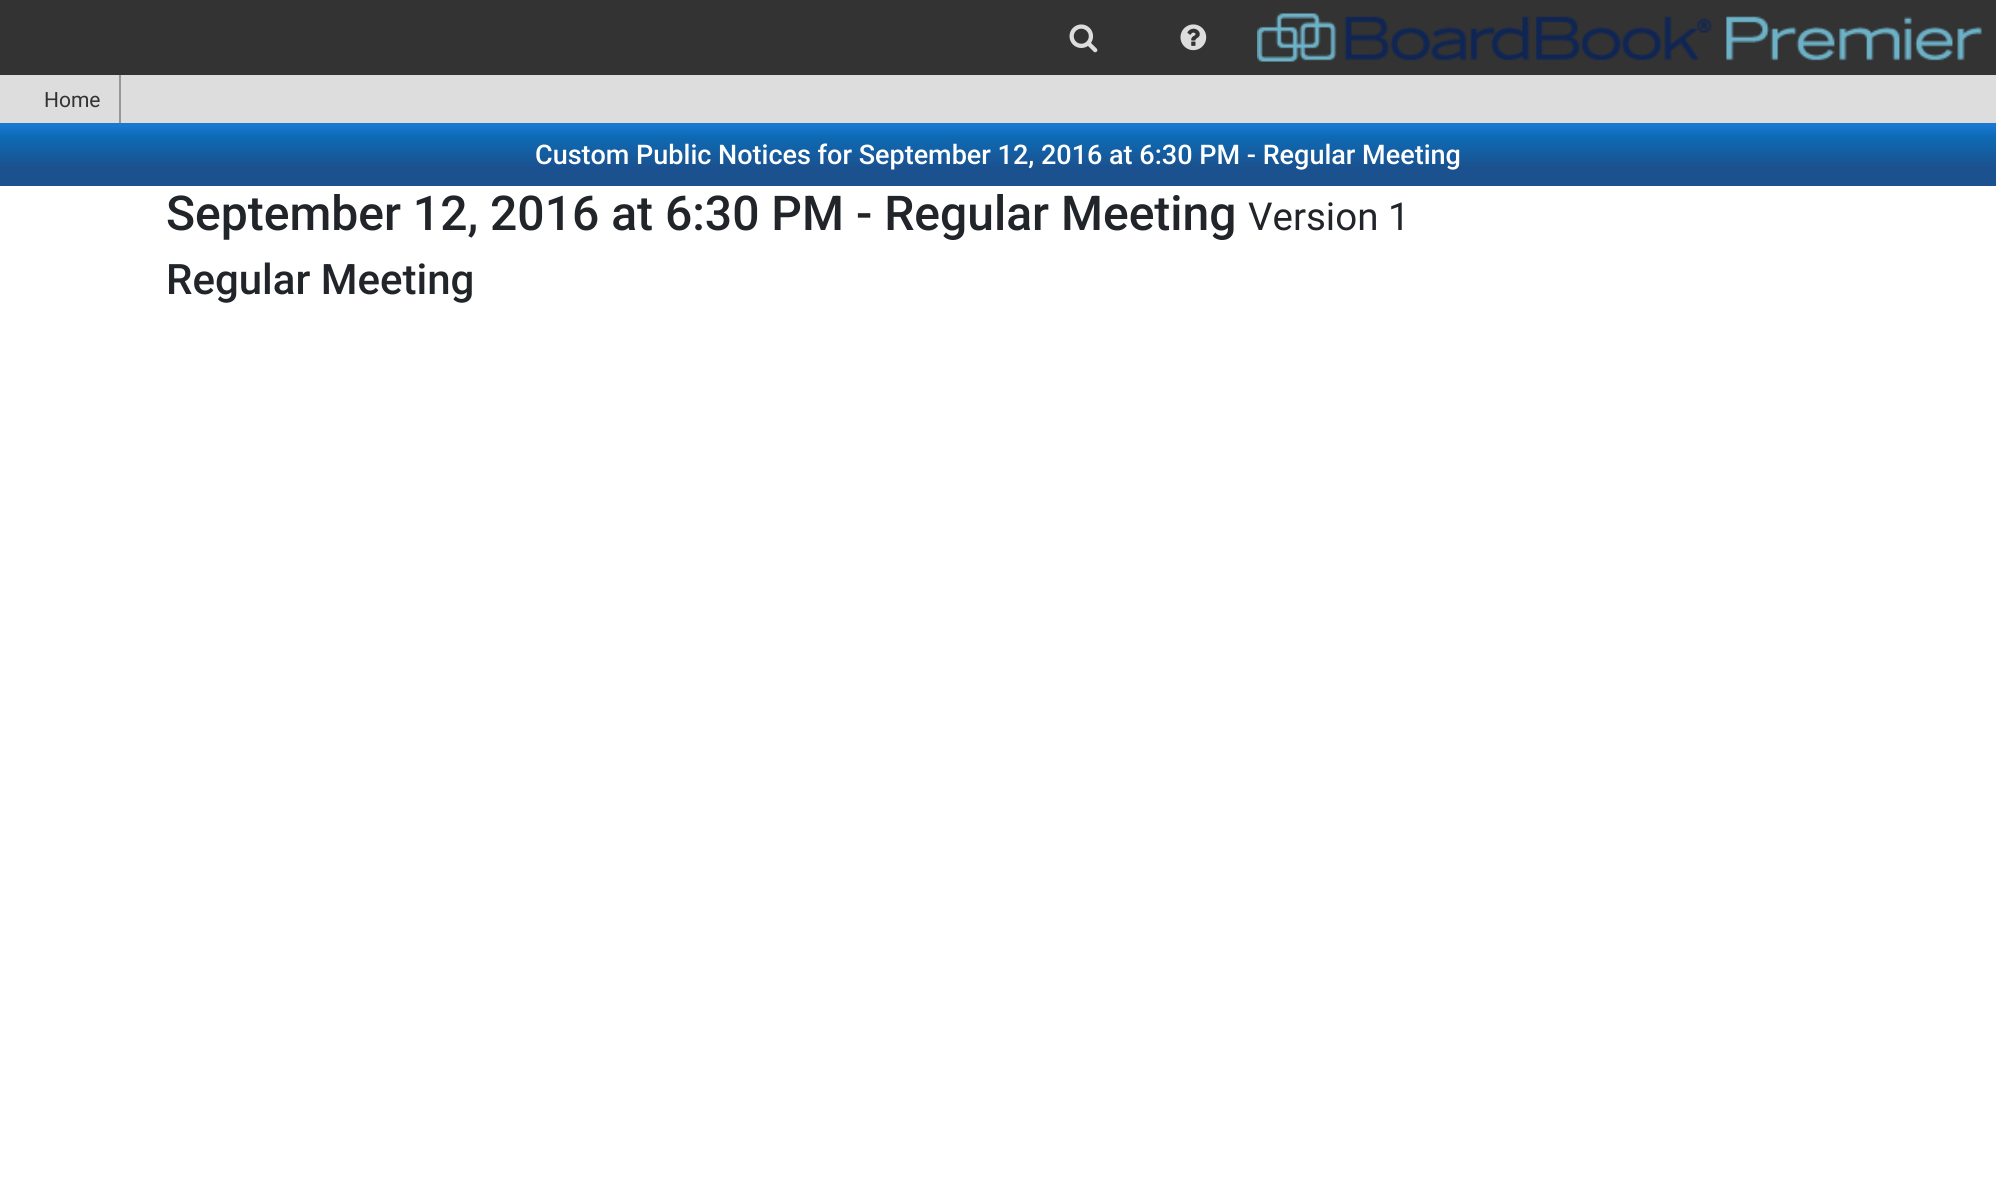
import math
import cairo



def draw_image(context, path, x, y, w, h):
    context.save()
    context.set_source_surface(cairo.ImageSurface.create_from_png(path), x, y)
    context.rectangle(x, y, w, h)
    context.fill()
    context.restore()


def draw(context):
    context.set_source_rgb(1, 1, 1)
    context.paint()
    context.set_source_rgb(51 / 255, 51 / 255, 51 / 255)
    context.rectangle(0, 0, 1996, 75)
    context.fill()
    draw_image(context, "images/1.png", 1069, 24, 29, 29)
    draw_image(context, "images/2.png", 1180, 24, 27, 27)
    draw_image(context, "images/3.png", 1257, 13, 725, 49)
    context.set_source_rgb(221 / 255, 221 / 255, 221 / 255)
    context.rectangle(0, 75, 1996, 48)
    context.fill()
    context.set_source_rgb(151 / 255, 151 / 255, 151 / 255)
    context.rectangle(119, 75, 2, 48)
    context.fill()
    gradient = cairo.LinearGradient(998, 186, 998, 123)
    gradient.add_color_stop_rgba(0.29, 27 / 255, 81 / 255, 143 / 255, 1)
    gradient.add_color_stop_rgba(0.79, 13 / 255, 107 / 255, 181 / 255, 1)
    gradient.add_color_stop_rgba(0.95, 25 / 255, 120 / 255, 208 / 255, 1)
    context.set_source(gradient)
    context.rectangle(0, 123, 1996, 63)
    context.fill()
    context.select_font_face("Roboto")
    context.set_font_size(21)
    context.set_source_rgb(51 / 255, 51 / 255, 51 / 255)
    context.move_to(44, 107)
    context.show_text("Home")
    context.select_font_face("Roboto Medium")
    context.set_font_size(27)
    context.set_source_rgb(1, 1, 1)
    context.move_to(535, 164)
    context.show_text("Custom Public Notices for September 12, 2016 at 6:30 PM - Regular Meeting")
    context.set_font_size(48)
    context.set_source_rgb(33 / 255, 37 / 255, 41 / 255)
    context.move_to(166, 230)
    context.show_text("September 12, 2016 at 6:30 PM - Regular Meeting")
    context.select_font_face("Roboto")
    context.set_font_size(38.5)
    context.move_to(1248, 230)
    context.show_text("Version 1")
    context.select_font_face("Roboto Medium")
    context.set_font_size(42)
    context.move_to(166, 294)
    context.show_text("Regular Meeting")


surface = cairo.ImageSurface(cairo.Format.RGB24, 1996, 1187)
context = cairo.Context(surface)
options = cairo.FontOptions()
options.set_hint_metrics(cairo.HintMetrics.OFF)
options.set_hint_style(cairo.HintStyle.NONE)
context.set_font_options(options)
context.set_miter_limit(4)
draw(context)
surface.write_to_png("out.png")
